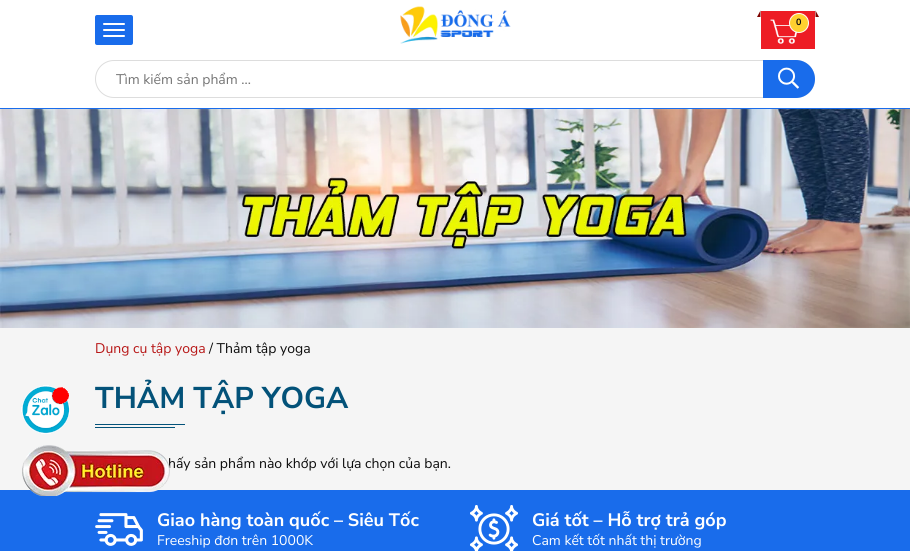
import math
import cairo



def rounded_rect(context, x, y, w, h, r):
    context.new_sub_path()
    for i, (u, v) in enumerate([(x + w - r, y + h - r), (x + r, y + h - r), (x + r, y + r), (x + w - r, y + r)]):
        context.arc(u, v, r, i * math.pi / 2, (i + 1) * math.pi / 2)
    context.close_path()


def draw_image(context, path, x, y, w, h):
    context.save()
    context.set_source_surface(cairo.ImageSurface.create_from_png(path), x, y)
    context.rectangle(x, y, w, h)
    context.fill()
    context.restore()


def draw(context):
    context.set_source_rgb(1, 1, 1)
    context.paint()
    context.set_source_rgb(25 / 255, 108 / 255, 235 / 255)
    context.rectangle(0, 108, 910, 1)
    context.fill()
    rounded_rect(context, 95, 15, 38, 30, 2)
    context.fill()
    context.set_source_rgb(1, 1, 1)
    rounded_rect(context, 103, 23, 22, 2, 1)
    context.fill()
    rounded_rect(context, 103, 29, 22, 2, 1)
    context.fill()
    rounded_rect(context, 103, 35, 22, 2, 1)
    context.fill()
    context.set_source_rgb(237 / 255, 28 / 255, 36 / 255)
    context.rectangle(761, 11, 54, 38)
    context.fill()
    context.set_source_rgb(126 / 255, 3 / 255, 0)
    context.new_path()
    context.move_to(760.5, 17)
    context.line_to(757, 17)
    context.line_to(760.5, 10.5)
    context.close_path()
    context.fill()
    context.new_path()
    context.move_to(819, 17)
    context.line_to(815.5, 17)
    context.line_to(815.5, 10.5)
    context.close_path()
    context.fill()
    draw_image(context, "images/1.png", 770, 19, 28, 25)
    context.set_source_rgb(1, 208 / 255, 47 / 255)
    context.arc(799, 23, 9.5, 0, 2 * math.pi)
    context.fill_preserve()
    context.set_source_rgb(1, 1, 1)
    context.set_line_width(1)
    context.stroke()
    draw_image(context, "images/2.png", 400, 6, 111, 38)
    rounded_rect(context, 95.5, 60.5, 719, 37, 18.5)
    context.set_source_rgb(221 / 255, 221 / 255, 221 / 255)
    context.stroke()
    context.set_source_rgb(25 / 255, 108 / 255, 235 / 255)
    context.new_path()
    context.move_to(763, 60)
    context.line_to(796, 60)
    context.curve_to(806.5, 60, 815, 68.5, 815, 79)
    context.curve_to(815, 89.5, 806.5, 98, 796, 98)
    context.line_to(763, 98)
    context.close_path()
    context.fill()
    draw_image(context, "images/3.png", 778, 67, 21, 22)
    context.set_source_rgb(245 / 255, 245 / 255, 245 / 255)
    context.rectangle(0, 328, 910, 162)
    context.fill()
    draw_image(context, "images/4.png", 21, 385, 49, 49)
    draw_image(context, "images/5.png", 0, 109, 910, 219)
    context.set_source_rgb(3 / 255, 82 / 255, 121 / 255)
    context.rectangle(95, 424, 90, 1)
    context.fill()
    context.rectangle(95, 427, 80, 1)
    context.fill()
    context.set_source_rgb(25 / 255, 108 / 255, 235 / 255)
    context.rectangle(0, 490, 910, 61)
    context.fill()
    draw_image(context, "images/7.png", 95, 513, 48, 33)
    draw_image(context, "images/8.png", 470, 505, 48, 46)
    context.select_font_face("Nunito Sans", cairo.FontSlant.NORMAL, cairo.FontWeight.BOLD)
    context.set_font_size(9)
    context.set_source_rgb(12 / 255, 12 / 255, 12 / 255)
    context.move_to(796, 25)
    context.show_text("0")
    context.select_font_face("Nunito Sans")
    context.set_font_size(14)
    context.set_source_rgb(117 / 255, 117 / 255, 117 / 255)
    context.move_to(116, 84)
    context.show_text("Tìm kiếm sản phẩm ...")
    context.set_source_rgb(183 / 255, 22 / 255, 22 / 255)
    context.move_to(95, 353)
    context.show_text("Dụng cụ tập yoga")
    context.set_source_rgb(12 / 255, 12 / 255, 12 / 255)
    context.move_to(209, 353)
    context.show_text("/ Thảm tập yoga")
    context.select_font_face("Nunito Sans", cairo.FontSlant.NORMAL, cairo.FontWeight.BOLD)
    context.set_font_size(30)
    context.set_source_rgb(3 / 255, 82 / 255, 121 / 255)
    context.move_to(95, 408)
    context.show_text("THẢM TẬP YOGA")
    context.select_font_face("Nunito Sans")
    context.set_font_size(14)
    context.set_source_rgb(12 / 255, 12 / 255, 12 / 255)
    context.move_to(168, 468)
    context.show_text("hấy sản phẩm nào khớp với lựa chọn của bạn.")
    draw_image(context, "images/6.png", 22, 445, 148, 51)
    context.select_font_face("Nunito Sans", cairo.FontSlant.NORMAL, cairo.FontWeight.BOLD)
    context.set_font_size(18)
    context.set_source_rgb(1, 1, 1)
    context.move_to(157, 526)
    context.show_text("Giao hàng toàn quốc – Siêu Tốc")
    context.select_font_face("Nunito Sans")
    context.set_font_size(14)
    context.move_to(157, 545)
    context.show_text("Freeship đơn trên 1000K")
    context.select_font_face("Nunito Sans", cairo.FontSlant.NORMAL, cairo.FontWeight.BOLD)
    context.set_font_size(18)
    context.move_to(532, 526)
    context.show_text("Giá tốt – Hỗ trợ trả góp")
    context.select_font_face("Nunito Sans")
    context.set_font_size(14)
    context.move_to(532, 545)
    context.show_text("Cam kết tốt nhất thị trường")


surface = cairo.ImageSurface(cairo.Format.RGB24, 910, 551)
context = cairo.Context(surface)
options = cairo.FontOptions()
options.set_hint_metrics(cairo.HintMetrics.OFF)
options.set_hint_style(cairo.HintStyle.NONE)
context.set_font_options(options)
context.set_miter_limit(4)
draw(context)
surface.write_to_png("out.png")
